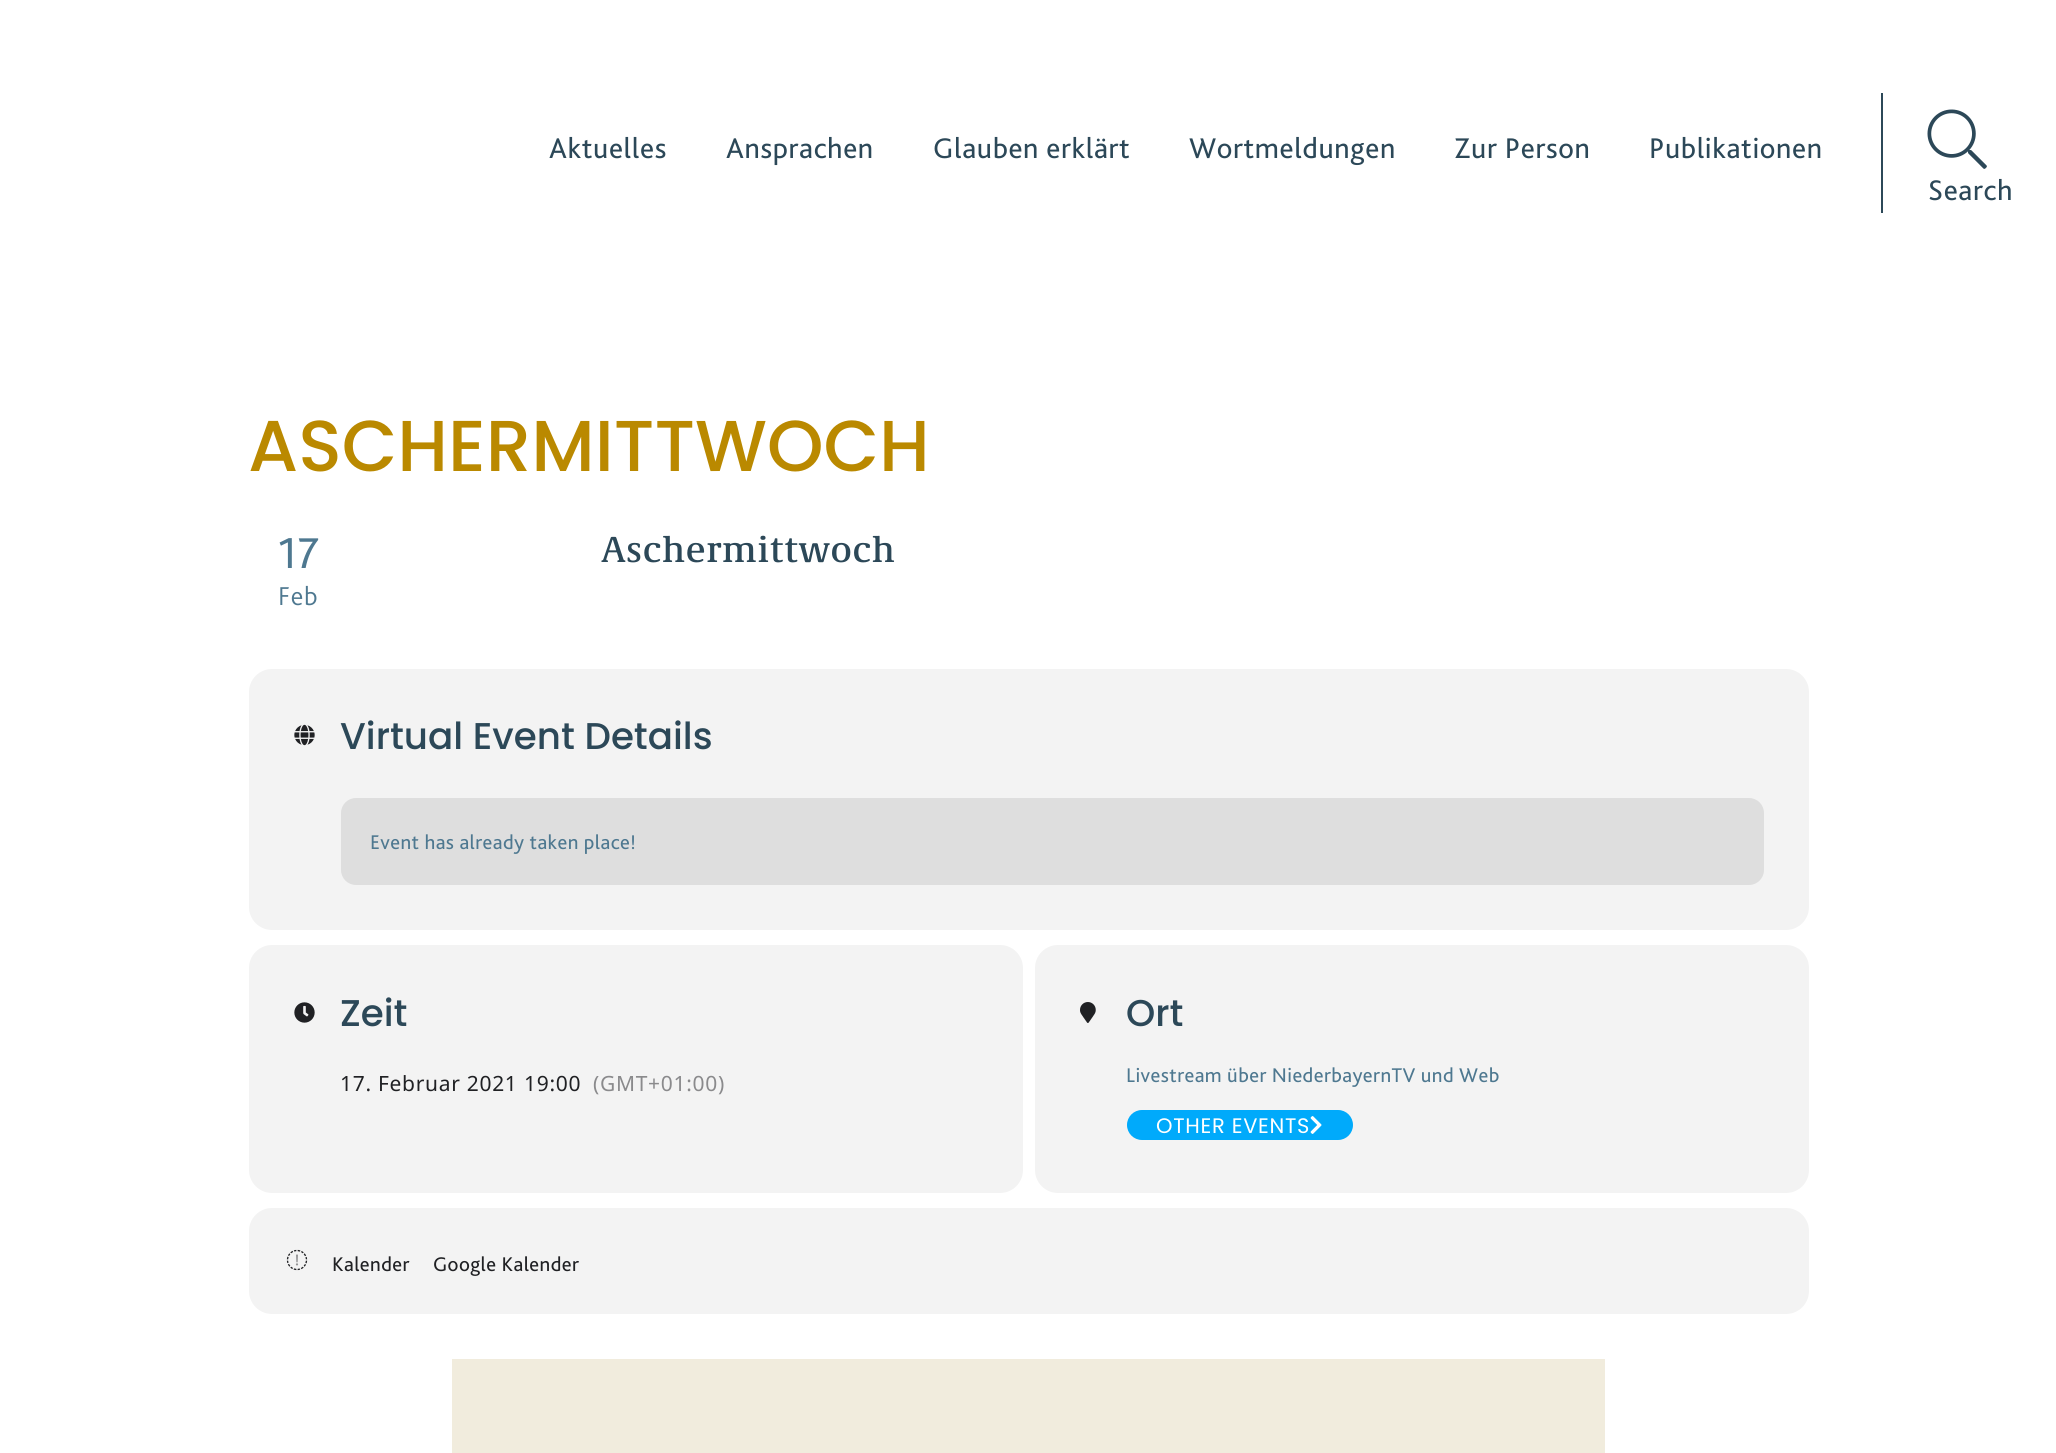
import math
import cairo



def draw_spaced(context, x, y, s, letter, word):
    context.move_to(x, y)
    for ch in s:
        context.show_text(ch)
        context.rel_move_to(letter + word * (ch == ' '), 0)


def rounded_rect(context, x, y, w, h, r):
    context.new_sub_path()
    for i, (u, v) in enumerate([(x + w - r, y + h - r), (x + r, y + h - r), (x + r, y + r), (x + w - r, y + r)]):
        context.arc(u, v, r, i * math.pi / 2, (i + 1) * math.pi / 2)
    context.close_path()


def draw_image(context, path, x, y, w, h):
    context.save()
    context.set_source_surface(cairo.ImageSurface.create_from_png(path), x, y)
    context.rectangle(x, y, w, h)
    context.fill()
    context.restore()


def draw(context):
    context.set_source_rgb(1, 1, 1)
    context.paint()
    context.set_source_rgb(44 / 255, 72 / 255, 88 / 255)
    context.rectangle(1881, 93, 2, 120)
    context.fill()
    draw_image(context, "images/1.png", 1927, 109, 60, 60)
    context.set_source_rgb(243 / 255, 243 / 255, 243 / 255)
    rounded_rect(context, 249, 669, 1560, 261, 23)
    context.fill()
    draw_image(context, "images/2.png", 294, 724, 21, 22)
    context.set_source_rgb(222 / 255, 222 / 255, 222 / 255)
    rounded_rect(context, 341, 798, 1423, 87, 15)
    context.fill()
    context.set_source_rgb(243 / 255, 243 / 255, 243 / 255)
    rounded_rect(context, 249, 945, 774, 248, 23)
    context.fill()
    draw_image(context, "images/3.png", 294, 1002, 21, 21)
    rounded_rect(context, 1035, 945, 774, 248, 23)
    context.fill()
    draw_image(context, "images/4.png", 1080, 1002, 16, 21)
    context.set_source_rgb(0, 170 / 255, 251 / 255)
    rounded_rect(context, 1127, 1110, 226, 30, 15)
    context.fill()
    draw_image(context, "images/5.png", 1310, 1116, 12, 18)
    context.set_source_rgb(243 / 255, 243 / 255, 243 / 255)
    rounded_rect(context, 249, 1208, 1560, 106, 23)
    context.fill()
    draw_image(context, "images/6.png", 286, 1249, 22, 22)
    context.set_source_rgb(241 / 255, 236 / 255, 221 / 255)
    context.rectangle(452, 1359, 1153, 94)
    context.fill()
    context.select_font_face("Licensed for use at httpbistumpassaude")
    context.set_font_size(29.75)
    context.set_source_rgb(44 / 255, 72 / 255, 88 / 255)
    draw_spaced(context, 549, 158, "Aktuelles", 0.6, 0)
    draw_spaced(context, 726, 158, "Ansprachen", 0.6, 0)
    draw_spaced(context, 933, 158, "Glauben erklärt", 0.6, 0)
    draw_spaced(context, 1189, 158, "Wortmeldungen", 0.6, 0)
    draw_spaced(context, 1454, 158, "Zur Person", 0.6, 0)
    draw_spaced(context, 1649, 158, "Publikationen", 0.6, 0)
    draw_spaced(context, 1928, 200, "Search", 0.6, 0)
    context.select_font_face("Poppins Medium")
    context.set_font_size(72)
    context.set_source_rgb(186 / 255, 137 / 255, 0)
    context.move_to(248, 471)
    context.show_text("ASCHERMITTWOCH")
    context.select_font_face("Licensed for use at httpbistumpassaude")
    context.set_font_size(45)
    context.set_source_rgb(78 / 255, 120 / 255, 144 / 255)
    draw_spaced(context, 278, 568, "17", 0.7, 0)
    context.select_font_face("Licensed for use at httpbistumpassaude Light")
    context.set_font_size(27)
    draw_spaced(context, 278, 605, "Feb", 0.7, 0)
    context.select_font_face("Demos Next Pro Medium")
    context.set_font_size(37.25)
    context.set_source_rgb(44 / 255, 72 / 255, 88 / 255)
    draw_spaced(context, 601, 562, "Aschermittwoch", 0.7, 0)
    context.select_font_face("Poppins Medium")
    context.move_to(340, 749)
    context.show_text("Virtual Event Details")
    context.select_font_face("Licensed for use at httpbistumpassaude")
    context.set_font_size(20.75)
    context.set_source_rgb(78 / 255, 120 / 255, 144 / 255)
    draw_spaced(context, 370, 849, "Event has already taken place!", 0.4, 0)
    context.select_font_face("Poppins Medium")
    context.set_font_size(37.25)
    context.set_source_rgb(44 / 255, 72 / 255, 88 / 255)
    context.move_to(340, 1026)
    context.show_text("Zeit")
    context.select_font_face("Noto Sans")
    context.set_font_size(21)
    context.set_source_rgb(32 / 255, 33 / 255, 36 / 255)
    draw_spaced(context, 340, 1091, "17. Februar 2021", 0.7, 0)
    draw_spaced(context, 524, 1091, "19:00", 0.7, 0)
    context.set_source_rgb(138 / 255, 138 / 255, 140 / 255)
    draw_spaced(context, 593, 1091, "(GMT+01:00)", 0.7, 0)
    context.select_font_face("Poppins Medium")
    context.set_font_size(37.25)
    context.set_source_rgb(44 / 255, 72 / 255, 88 / 255)
    context.move_to(1126, 1026)
    context.show_text("Ort")
    context.select_font_face("Licensed for use at httpbistumpassaude")
    context.set_font_size(20.75)
    context.set_source_rgb(78 / 255, 120 / 255, 144 / 255)
    draw_spaced(context, 1126, 1082, "Livestream über NiederbayernTV und Web", 0.4, 0)
    context.select_font_face("Poppins")
    context.set_font_size(21)
    context.set_source_rgb(1, 1, 1)
    draw_spaced(context, 1156, 1133, "OTHER EVENTS", 0.7, 0)
    context.select_font_face("Licensed for use at httpbistumpassaude")
    context.set_font_size(20.75)
    context.set_source_rgb(32 / 255, 33 / 255, 36 / 255)
    draw_spaced(context, 332, 1271, "Kalender", 0.4, 0)
    draw_spaced(context, 433, 1271, "Google Kalender", 0.4, 0)


surface = cairo.ImageSurface(cairo.Format.RGB24, 2056, 1453)
context = cairo.Context(surface)
options = cairo.FontOptions()
options.set_hint_metrics(cairo.HintMetrics.OFF)
options.set_hint_style(cairo.HintStyle.NONE)
context.set_font_options(options)
context.set_miter_limit(4)
draw(context)
surface.write_to_png("out.png")
